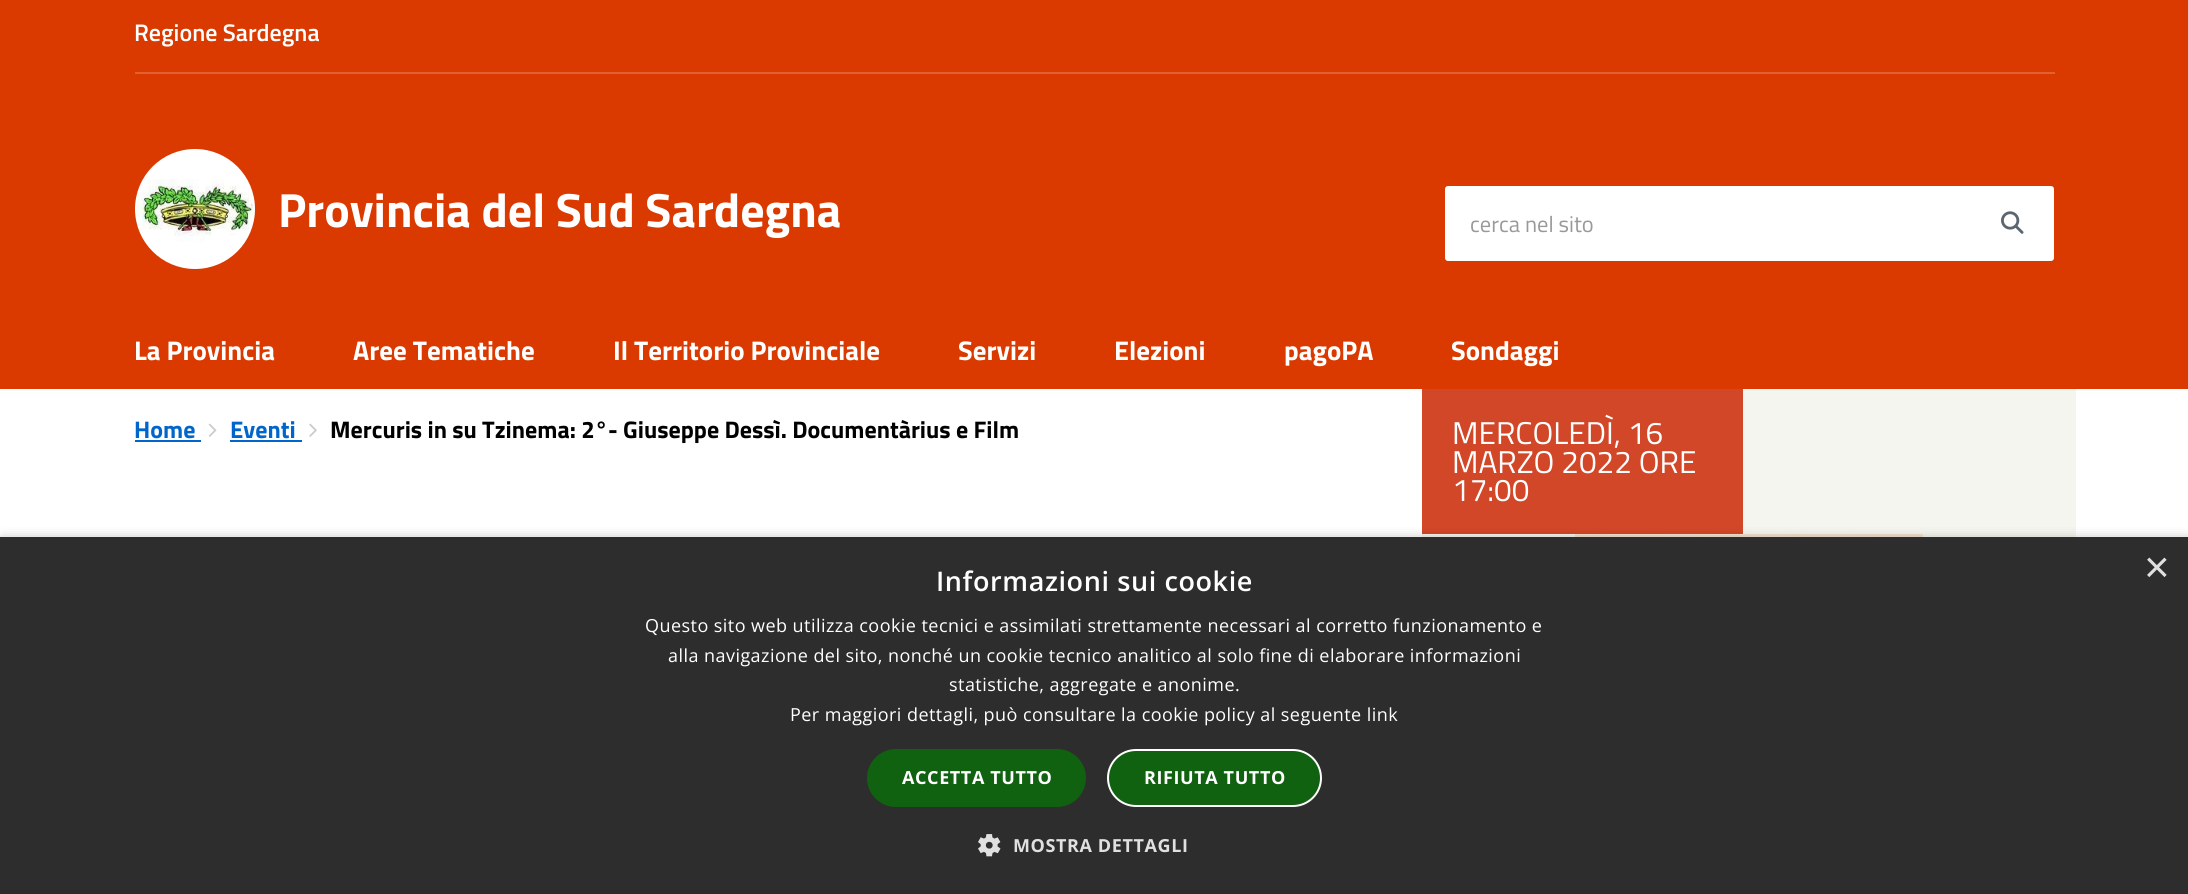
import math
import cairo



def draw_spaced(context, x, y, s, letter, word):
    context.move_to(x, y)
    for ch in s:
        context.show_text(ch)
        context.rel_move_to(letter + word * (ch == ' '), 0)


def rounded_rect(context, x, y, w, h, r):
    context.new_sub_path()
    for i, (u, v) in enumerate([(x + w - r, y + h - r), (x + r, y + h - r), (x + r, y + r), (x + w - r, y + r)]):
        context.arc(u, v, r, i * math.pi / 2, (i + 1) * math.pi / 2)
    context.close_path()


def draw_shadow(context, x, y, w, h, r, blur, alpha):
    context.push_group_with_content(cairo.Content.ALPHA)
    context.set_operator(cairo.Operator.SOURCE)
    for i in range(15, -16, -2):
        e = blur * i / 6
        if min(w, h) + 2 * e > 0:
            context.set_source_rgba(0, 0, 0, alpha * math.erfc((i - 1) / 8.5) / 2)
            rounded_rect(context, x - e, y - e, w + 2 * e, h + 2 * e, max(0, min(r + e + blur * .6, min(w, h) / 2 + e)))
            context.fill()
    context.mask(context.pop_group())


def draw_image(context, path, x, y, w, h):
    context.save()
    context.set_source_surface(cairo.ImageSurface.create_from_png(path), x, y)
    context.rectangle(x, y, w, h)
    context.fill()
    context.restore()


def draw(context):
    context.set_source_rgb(1, 1, 1)
    context.paint()
    context.set_source_rgb(218 / 255, 58 / 255, 0)
    context.rectangle(0, 0, 2188, 389)
    context.fill()
    context.set_source_rgb(225 / 255, 97 / 255, 51 / 255)
    context.rectangle(135, 72, 1920, 2)
    context.fill()
    context.set_source_rgb(1, 1, 1)
    context.arc(195, 209, 59, 0, 2 * math.pi)
    context.fill_preserve()
    context.stroke()
    draw_image(context, "images/1.png", 137, 179, 117, 63)
    rounded_rect(context, 1446, 187, 607, 73, 2)
    context.fill_preserve()
    context.stroke()
    draw_image(context, "images/2.png", 2001, 211, 23, 23)
    context.set_source_rgb(0, 102 / 255, 204 / 255)
    context.rectangle(135, 440, 66, 2)
    context.fill()
    draw_image(context, "images/3.png", 208, 423, 9, 14)
    context.rectangle(230, 440, 72, 2)
    context.fill()
    draw_image(context, "images/4.png", 309, 423, 8, 14)
    context.set_source_rgb(245 / 255, 245 / 255, 240 / 255)
    context.rectangle(1422, 389, 654, 148)
    context.fill()
    context.set_source_rgb(209 / 255, 71 / 255, 40 / 255)
    context.rectangle(1422, 389, 321, 145)
    context.fill()
    draw_image(context, "images/5.png", 1575, 534, 348, 3)
    context.set_source_rgb(0, 0, 0)
    draw_shadow(context, 2, 540, 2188, 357, 0, 6, 0.35)
    context.set_source_rgb(45 / 255, 45 / 255, 45 / 255)
    context.rectangle(0, 537, 2188, 357)
    context.fill()
    context.set_source_rgb(16 / 255, 97 / 255, 16 / 255)
    rounded_rect(context, 867, 749, 219, 58, 29)
    context.fill()
    rounded_rect(context, 1108, 750, 213, 56, 28)
    context.fill_preserve()
    context.set_source_rgb(1, 1, 1)
    context.stroke()
    draw_image(context, "images/6.png", 978, 834, 23, 23)
    context.select_font_face("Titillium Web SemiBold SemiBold")
    context.set_font_size(24)
    context.move_to(134, 41)
    context.show_text("Regione Sardegna")
    context.select_font_face("Titillium Web", cairo.FontSlant.NORMAL, cairo.FontWeight.BOLD)
    context.set_font_size(48)
    context.move_to(278, 227)
    context.show_text("Provincia del Sud Sardegna")
    context.select_font_face("Titillium Web")
    context.set_font_size(22.5)
    context.set_source_rgb(153 / 255, 153 / 255, 153 / 255)
    context.move_to(1470, 232)
    context.show_text("cerca nel sito")
    context.select_font_face("Titillium Web", cairo.FontSlant.NORMAL, cairo.FontWeight.BOLD)
    context.set_font_size(27)
    context.set_source_rgb(1, 1, 1)
    context.move_to(134, 360)
    context.show_text("La Provincia")
    context.move_to(353, 360)
    context.show_text("Aree Tematiche")
    context.move_to(613, 360)
    context.show_text("Il Territorio Provinciale")
    context.move_to(958, 360)
    context.show_text("Servizi")
    context.move_to(1114, 360)
    context.show_text("Elezioni")
    context.move_to(1284, 360)
    context.show_text("pagoPA")
    context.move_to(1451, 360)
    context.show_text("Sondaggi")
    context.set_font_size(24)
    context.set_source_rgb(0, 102 / 255, 204 / 255)
    context.move_to(134, 438)
    context.show_text("Home")
    context.move_to(230, 438)
    context.show_text("Eventi")
    context.set_source_rgb(0, 0, 0)
    context.move_to(330, 438)
    context.show_text("Mercuris in su Tzinema: 2°- Giuseppe Dessì. Documentàrius e Film")
    context.select_font_face("Titillium Web")
    context.set_font_size(31.5)
    context.set_source_rgb(1, 1, 1)
    context.move_to(1452, 444)
    context.show_text("MERCOLEDÌ, 16")
    context.move_to(1452, 473)
    context.show_text("MARZO 2022 ORE")
    context.move_to(1452, 501)
    context.show_text("17:00")
    context.select_font_face("Liberation Sans")
    context.set_font_size(44)
    context.set_source_rgb(224 / 255, 224 / 255, 224 / 255)
    context.move_to(2144, 582)
    context.show_text("×")
    context.select_font_face("Open Sans SemiBold")
    context.set_font_size(27)
    context.set_source_rgb(1, 1, 1)
    draw_spaced(context, 936, 591, "Informazioni sui cookie", 0.6, 0)
    context.select_font_face("Open Sans")
    context.set_font_size(18)
    draw_spaced(context, 645, 632, "Questo sito web utilizza cookie tecnici e assimilati strettamente necessari al corretto funzionamento e", 0.45, 0)
    draw_spaced(context, 668, 662, "alla navigazione del sito, nonché un cookie tecnico analitico al solo fine di elaborare informazioni", 0.45, 0)
    draw_spaced(context, 949, 691, "statistiche, aggregate e anonime.", 0.45, 0)
    draw_spaced(context, 790, 721, "Per maggiori dettagli, può consultare la cookie policy al seguente link", 0.45, 0)
    context.select_font_face("Open Sans", cairo.FontSlant.NORMAL, cairo.FontWeight.BOLD)
    draw_spaced(context, 902, 784, "ACCETTA TUTTO", 0.6, 0)
    draw_spaced(context, 1144, 784, "RIFIUTA TUTTO", 0.6, 0)
    context.set_source_rgb(224 / 255, 224 / 255, 224 / 255)
    draw_spaced(context, 1013, 852, "MOSTRA DETTAGLI", 0.6, 0)


surface = cairo.ImageSurface(cairo.Format.RGB24, 2188, 894)
context = cairo.Context(surface)
options = cairo.FontOptions()
options.set_hint_metrics(cairo.HintMetrics.OFF)
options.set_hint_style(cairo.HintStyle.NONE)
context.set_font_options(options)
context.set_miter_limit(4)
draw(context)
surface.write_to_png("out.png")
